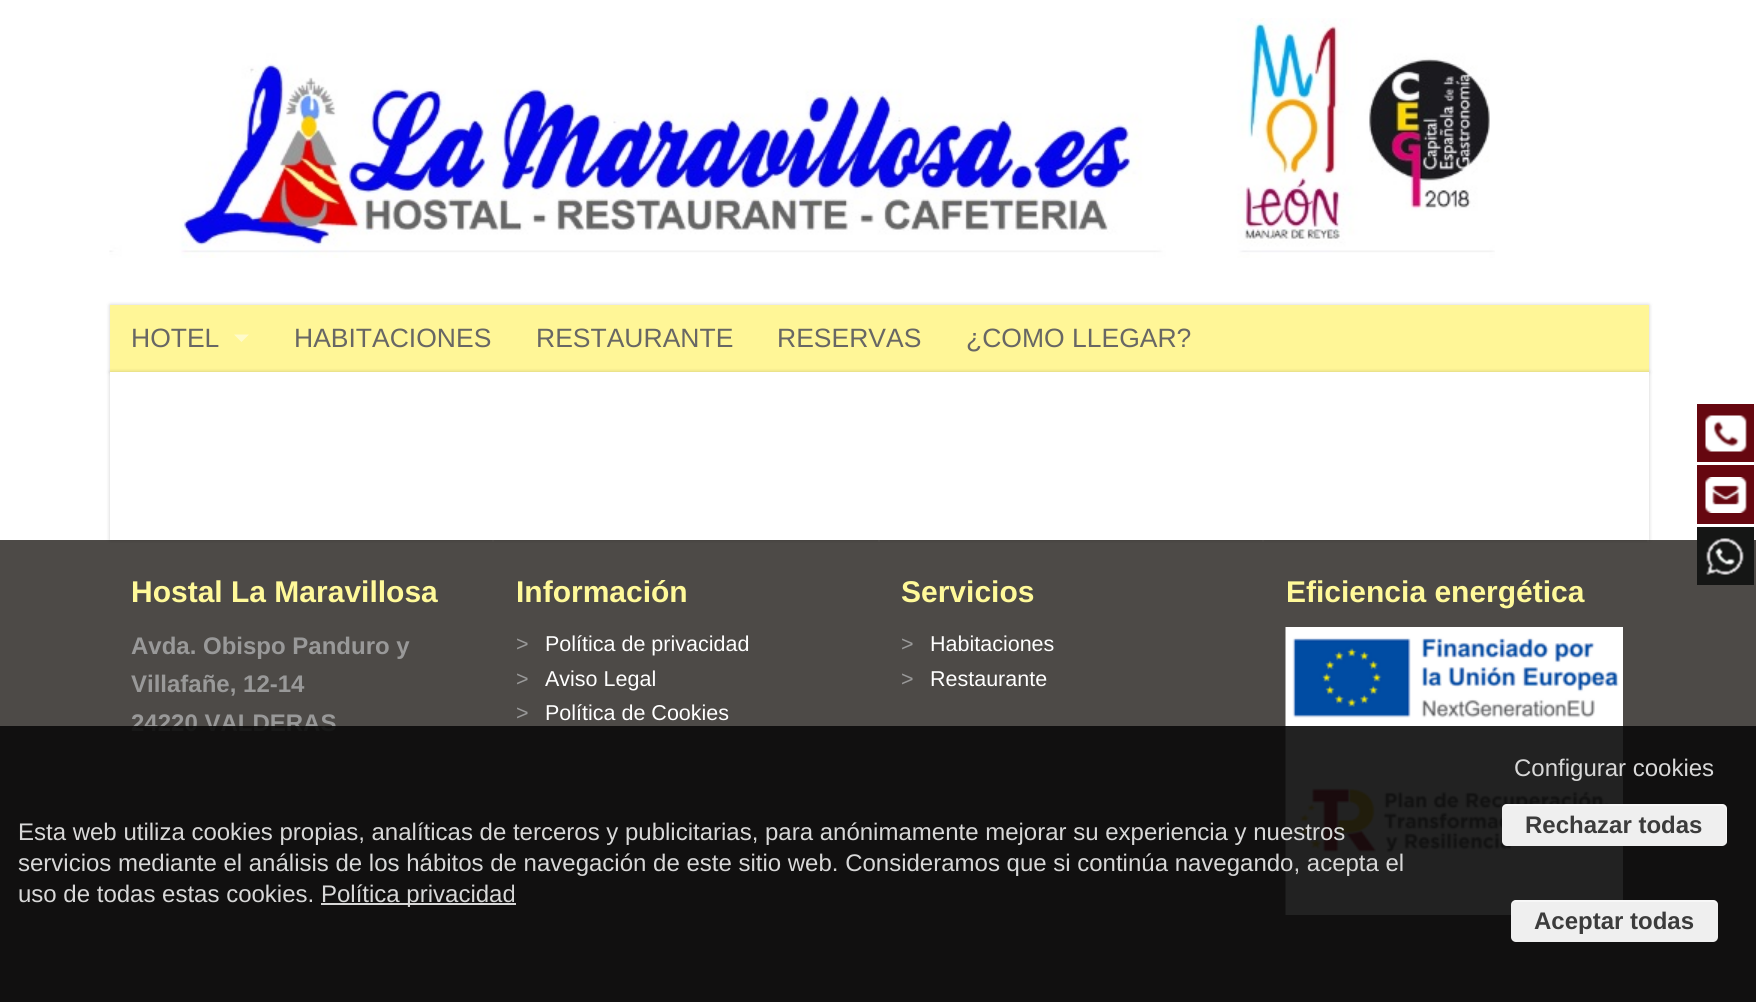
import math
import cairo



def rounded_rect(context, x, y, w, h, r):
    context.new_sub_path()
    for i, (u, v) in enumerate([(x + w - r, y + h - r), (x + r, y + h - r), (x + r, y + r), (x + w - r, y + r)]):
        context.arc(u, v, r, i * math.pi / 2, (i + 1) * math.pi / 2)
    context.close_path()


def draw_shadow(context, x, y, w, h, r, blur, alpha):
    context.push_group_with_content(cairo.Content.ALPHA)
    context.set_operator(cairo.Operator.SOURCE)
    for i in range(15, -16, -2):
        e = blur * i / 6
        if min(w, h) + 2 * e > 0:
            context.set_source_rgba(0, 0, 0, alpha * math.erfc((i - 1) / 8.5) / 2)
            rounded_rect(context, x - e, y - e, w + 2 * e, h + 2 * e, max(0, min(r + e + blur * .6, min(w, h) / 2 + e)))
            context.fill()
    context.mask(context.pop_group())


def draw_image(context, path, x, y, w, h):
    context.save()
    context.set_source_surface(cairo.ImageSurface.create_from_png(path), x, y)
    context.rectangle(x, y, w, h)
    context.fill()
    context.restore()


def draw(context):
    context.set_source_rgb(1, 1, 1)
    context.paint()
    draw_image(context, "images/1.png", 109, 18, 1386, 240)
    context.set_source_rgb(0, 0, 0)
    draw_shadow(context, 110, 305, 1539, 67, 0, 2, 0.2)
    context.set_source_rgb(1, 246 / 255, 151 / 255)
    context.rectangle(110, 305, 1539, 67)
    context.fill()
    context.set_source_rgb(1, 251 / 255, 203 / 255)
    context.new_path()
    context.move_to(234, 334.5)
    context.line_to(249, 334.5)
    context.line_to(241.5, 342)
    context.close_path()
    context.fill()
    context.set_source_rgb(77 / 255, 74 / 255, 71 / 255)
    context.rectangle(0, 540, 1756, 462)
    context.fill()
    context.set_source_rgb(0, 0, 0)
    draw_shadow(context, 110, 372, 1539, 168, 0, 2, 0.2)
    context.set_source_rgb(1, 1, 1)
    context.rectangle(110, 372, 1539, 168)
    context.fill()
    context.set_source_rgb(102 / 255, 7 / 255, 16 / 255)
    context.rectangle(1697, 404, 57, 58)
    context.fill()
    draw_image(context, "images/2.png", 1705, 415, 42, 37)
    context.rectangle(1697, 465, 57, 59)
    context.fill()
    draw_image(context, "images/3.png", 1705, 477, 42, 36)
    context.set_source_rgb(21 / 255, 22 / 255, 21 / 255)
    context.rectangle(1697, 527, 57, 58)
    context.fill()
    draw_image(context, "images/4.png", 1706, 538, 38, 37)
    context.set_source_rgb(77 / 255, 74 / 255, 71 / 255)
    context.rectangle(492, 540, 2, 2)
    context.fill()
    context.rectangle(878, 540, 2, 2)
    context.fill()
    context.rectangle(1262, 540, 2, 2)
    context.fill()
    context.rectangle(1647, 540, 2, 2)
    context.fill()
    draw_image(context, "images/5.png", 1285, 627, 338, 99)
    draw_image(context, "images/6.png", 1285, 726, 338, 189)
    context.select_font_face("Liberation Sans")
    context.set_font_size(26.5)
    context.set_source_rgb(104 / 255, 103 / 255, 100 / 255)
    context.move_to(131, 347)
    context.show_text("HOTEL")
    context.move_to(294, 347)
    context.show_text("HABITACIONES")
    context.move_to(536, 347)
    context.show_text("RESTAURANTE")
    context.move_to(777, 347)
    context.show_text("RESERVAS")
    context.move_to(966, 347)
    context.show_text("¿COMO LLEGAR?")
    context.select_font_face("Liberation Sans", cairo.FontSlant.NORMAL, cairo.FontWeight.BOLD)
    context.set_font_size(30)
    context.set_source_rgb(1, 249 / 255, 153 / 255)
    context.move_to(131, 602)
    context.show_text("Hostal La Maravillosa")
    context.set_font_size(24)
    context.set_source_rgb(153 / 255, 153 / 255, 153 / 255)
    context.move_to(131, 654)
    context.show_text("Avda. Obispo Panduro y")
    context.move_to(131, 692)
    context.show_text("Villafañe, 12-14")
    context.move_to(131, 731)
    context.show_text("24220 VALDERAS")
    context.set_font_size(30)
    context.set_source_rgb(1, 249 / 255, 153 / 255)
    context.move_to(516, 602)
    context.show_text("Información")
    context.select_font_face("Liberation Sans")
    context.set_font_size(21.5)
    context.set_source_rgb(153 / 255, 153 / 255, 153 / 255)
    context.move_to(516, 651)
    context.show_text(">")
    context.set_source_rgb(1, 1, 1)
    context.move_to(545, 651)
    context.show_text("Política de privacidad")
    context.set_source_rgb(153 / 255, 153 / 255, 153 / 255)
    context.move_to(516, 686)
    context.show_text(">")
    context.set_source_rgb(1, 1, 1)
    context.move_to(545, 686)
    context.show_text("Aviso Legal")
    context.set_source_rgb(153 / 255, 153 / 255, 153 / 255)
    context.move_to(516, 720)
    context.show_text(">")
    context.set_source_rgb(1, 1, 1)
    context.move_to(545, 720)
    context.show_text("Política de Cookies")
    context.select_font_face("Liberation Sans", cairo.FontSlant.NORMAL, cairo.FontWeight.BOLD)
    context.set_font_size(30)
    context.set_source_rgb(1, 249 / 255, 153 / 255)
    context.move_to(901, 602)
    context.show_text("Servicios")
    context.select_font_face("Liberation Sans")
    context.set_font_size(21.5)
    context.set_source_rgb(153 / 255, 153 / 255, 153 / 255)
    context.move_to(901, 651)
    context.show_text(">")
    context.set_source_rgb(1, 1, 1)
    context.move_to(930, 651)
    context.show_text("Habitaciones")
    context.set_source_rgb(153 / 255, 153 / 255, 153 / 255)
    context.move_to(901, 686)
    context.show_text(">")
    context.set_source_rgb(1, 1, 1)
    context.move_to(930, 686)
    context.show_text("Restaurante")
    context.select_font_face("Liberation Sans", cairo.FontSlant.NORMAL, cairo.FontWeight.BOLD)
    context.set_font_size(30)
    context.set_source_rgb(1, 249 / 255, 153 / 255)
    context.move_to(1286, 602)
    context.show_text("Eficiencia energética")
    context.set_source_rgba(10 / 255, 10 / 255, 10 / 255, 0.9)
    context.rectangle(0, 726, 1756, 276)
    context.fill()
    context.select_font_face("Liberation Sans")
    context.set_font_size(24)
    context.set_source_rgb(216 / 255, 216 / 255, 216 / 255)
    context.move_to(18, 840)
    context.show_text("Esta web utiliza cookies propias, analíticas de terceros y publicitarias, para anónimamente mejorar su experiencia y nuestros")
    context.move_to(18, 871)
    context.show_text("servicios mediante el análisis de los hábitos de navegación de este sitio web. Consideramos que si continúa navegando, acepta el")
    context.move_to(18, 902)
    context.show_text("uso de todas estas cookies.")
    context.rectangle(321, 903, 195, 2)
    context.fill()
    context.move_to(321, 902)
    context.show_text("Política privacidad")
    context.move_to(1514, 776)
    context.show_text("Configurar cookies")
    context.set_source_rgb(239 / 255, 239 / 255, 239 / 255)
    rounded_rect(context, 1502, 804, 225, 42, 5)
    context.fill()
    context.set_source_rgba(1, 1, 1, 0.5)
    context.new_path()
    context.move_to(1506, 806)
    context.line_to(1722, 806)
    context.curve_to(1724, 806, 1726, 808, 1726, 810)
    context.line_to(1726, 844)
    context.curve_to(1727, 843, 1727, 842, 1727, 841)
    context.line_to(1727, 809)
    context.curve_to(1727, 806, 1725, 804, 1722, 804)
    context.line_to(1507, 804)
    context.curve_to(1504, 804, 1502, 806, 1502, 809)
    context.line_to(1502, 810)
    context.curve_to(1502, 808, 1504, 806, 1506, 806)
    context.close_path()
    context.fill()
    context.select_font_face("Liberation Sans", cairo.FontSlant.NORMAL, cairo.FontWeight.BOLD)
    context.set_source_rgb(60 / 255, 60 / 255, 60 / 255)
    context.move_to(1525, 833)
    context.show_text("Rechazar todas")
    context.set_source_rgb(239 / 255, 239 / 255, 239 / 255)
    rounded_rect(context, 1511, 900, 207, 42, 5)
    context.fill()
    context.set_source_rgba(1, 1, 1, 0.5)
    context.new_path()
    context.move_to(1515, 902)
    context.line_to(1713, 902)
    context.curve_to(1715, 902, 1718, 904, 1718, 906)
    context.line_to(1718, 905)
    context.curve_to(1718, 902, 1716, 900, 1713, 900)
    context.line_to(1516, 900)
    context.curve_to(1514, 900, 1512, 902, 1511, 904)
    context.curve_to(1512, 903, 1514, 902, 1515, 902)
    context.close_path()
    context.fill()
    context.set_source_rgb(60 / 255, 60 / 255, 60 / 255)
    context.move_to(1534, 929)
    context.show_text("Aceptar todas")


surface = cairo.ImageSurface(cairo.Format.RGB24, 1756, 1002)
context = cairo.Context(surface)
options = cairo.FontOptions()
options.set_hint_metrics(cairo.HintMetrics.OFF)
options.set_hint_style(cairo.HintStyle.NONE)
context.set_font_options(options)
context.set_miter_limit(4)
draw(context)
surface.write_to_png("out.png")
